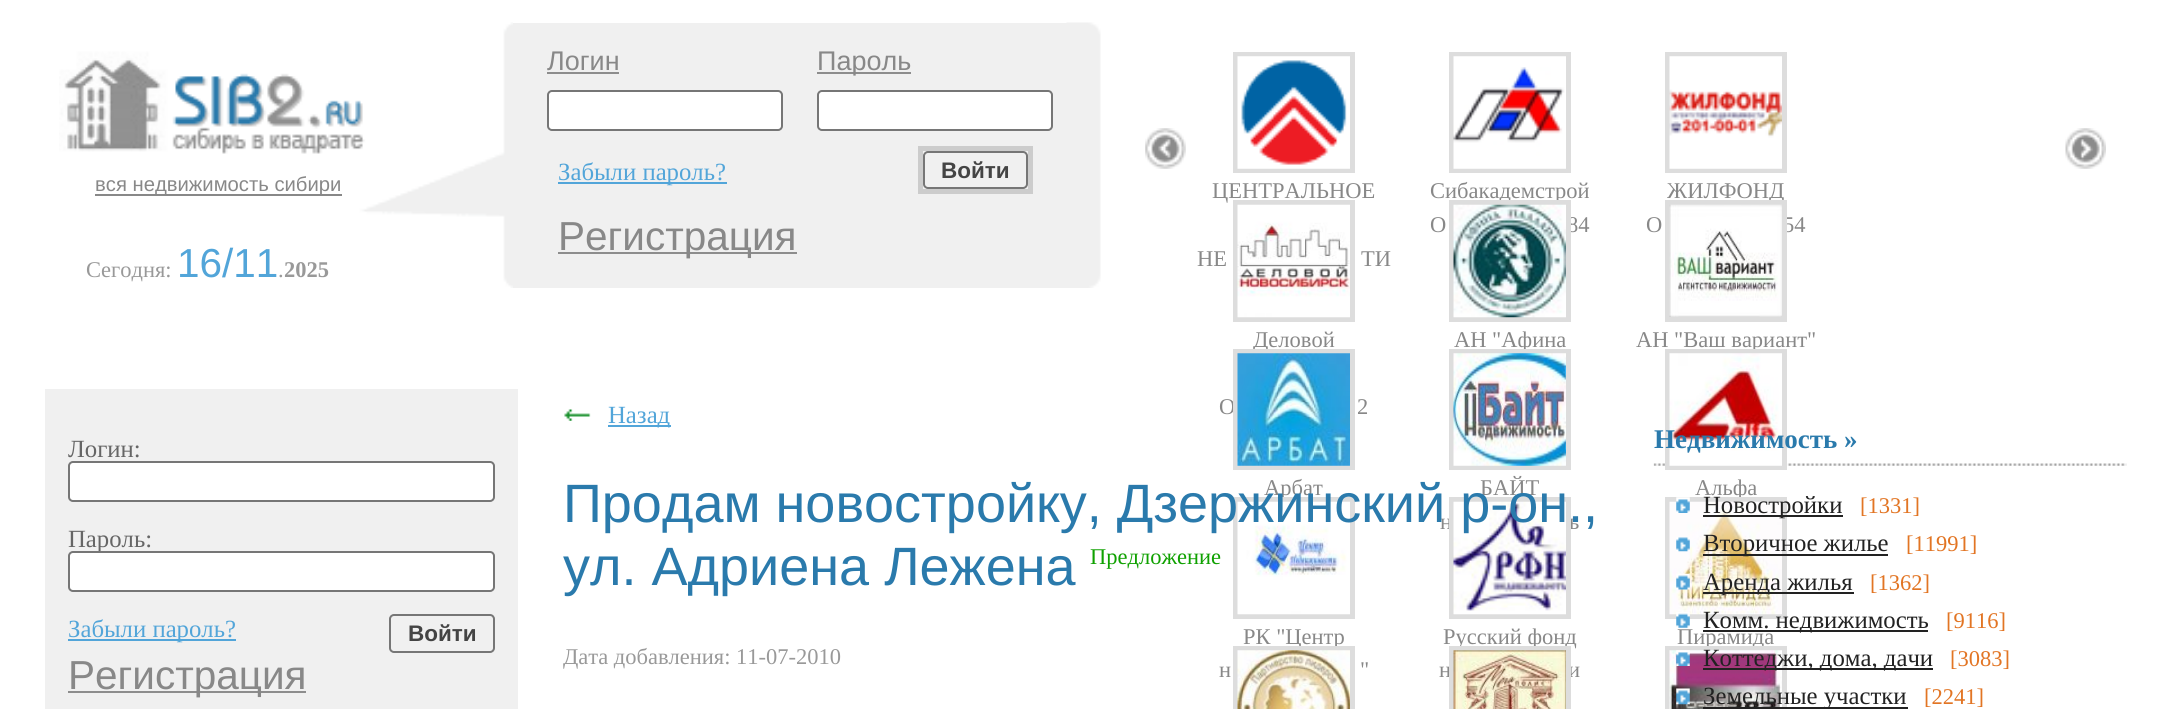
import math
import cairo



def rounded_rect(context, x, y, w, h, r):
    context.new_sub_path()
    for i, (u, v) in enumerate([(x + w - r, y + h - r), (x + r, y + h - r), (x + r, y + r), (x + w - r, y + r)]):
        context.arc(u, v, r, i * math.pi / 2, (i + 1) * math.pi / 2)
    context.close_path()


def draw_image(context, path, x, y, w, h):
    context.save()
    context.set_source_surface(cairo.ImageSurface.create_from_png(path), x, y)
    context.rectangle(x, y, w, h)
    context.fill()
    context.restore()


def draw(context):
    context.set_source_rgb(1, 1, 1)
    context.paint()
    draw_image(context, "images/1.png", 59, 22, 454, 266)
    context.set_source_rgb(136 / 255, 136 / 255, 136 / 255)
    context.rectangle(95, 194, 247, 2)
    context.fill()
    context.set_source_rgb(240 / 255, 240 / 255, 240 / 255)
    context.rectangle(513, 23, 554, 265)
    context.fill()
    draw_image(context, "images/2.png", 1066, 22, 50, 266)
    context.set_source_rgb(141 / 255, 141 / 255, 141 / 255)
    context.rectangle(547, 72, 72, 2)
    context.fill()
    context.rectangle(817, 72, 94, 2)
    context.fill()
    context.set_source_rgb(1, 1, 1)
    rounded_rect(context, 548, 91, 234, 39, 4)
    context.fill_preserve()
    context.set_source_rgb(118 / 255, 118 / 255, 118 / 255)
    context.stroke()
    context.set_source_rgb(1, 1, 1)
    rounded_rect(context, 818, 91, 234, 39, 4)
    context.fill_preserve()
    context.set_source_rgb(118 / 255, 118 / 255, 118 / 255)
    context.stroke()
    context.set_source_rgb(82 / 255, 165 / 255, 217 / 255)
    context.rectangle(558, 182, 169, 2)
    context.fill()
    context.rectangle(920.5, 148.5, 110, 43)
    context.set_source_rgb(204 / 255, 204 / 255, 204 / 255)
    context.set_line_width(5)
    context.stroke()
    rounded_rect(context, 924, 152, 103, 36, 4)
    context.set_source_rgb(118 / 255, 118 / 255, 118 / 255)
    context.set_line_width(2)
    context.stroke()
    context.set_source_rgb(141 / 255, 141 / 255, 141 / 255)
    context.rectangle(558, 252, 239, 2)
    context.fill()
    draw_image(context, "images/3.png", 1145, 128, 41, 41)
    draw_image(context, "images/4.png", 2065, 128, 41, 41)
    context.rectangle(1235.5, 54.5, 117, 116)
    context.set_source_rgb(221 / 255, 221 / 255, 221 / 255)
    context.set_line_width(5)
    context.stroke()
    draw_image(context, "images/5.png", 1237, 56, 113, 113)
    context.rectangle(1451.5, 54.5, 117, 116)
    context.stroke()
    draw_image(context, "images/6.png", 1453, 56, 113, 113)
    context.rectangle(1667.5, 54.5, 117, 116)
    context.stroke()
    draw_image(context, "images/7.png", 1669, 56, 113, 113)
    context.set_source_rgb(240 / 255, 240 / 255, 240 / 255)
    context.rectangle(45, 389, 473, 320)
    context.fill()
    context.set_source_rgb(1, 1, 1)
    rounded_rect(context, 69, 462, 425, 39, 4)
    context.fill_preserve()
    context.set_source_rgb(118 / 255, 118 / 255, 118 / 255)
    context.set_line_width(2)
    context.stroke()
    context.set_source_rgb(82 / 255, 165 / 255, 217 / 255)
    context.rectangle(68, 639, 168, 2)
    context.fill()
    rounded_rect(context, 390, 615, 104, 37, 4)
    context.set_source_rgb(118 / 255, 118 / 255, 118 / 255)
    context.stroke()
    context.set_source_rgb(141 / 255, 141 / 255, 141 / 255)
    context.rectangle(68, 691, 238, 2)
    context.fill()
    draw_image(context, "images/20.png", 564, 409, 27, 12)
    context.set_source_rgb(82 / 255, 165 / 255, 217 / 255)
    context.rectangle(608, 425, 63, 2)
    context.fill()
    draw_image(context, "images/21.png", 1653, 463, 474, 3)
    context.select_font_face("Liberation Sans")
    context.set_font_size(20.25)
    context.set_source_rgb(136 / 255, 136 / 255, 136 / 255)
    context.move_to(95, 191)
    context.show_text("вся недвижимость сибири")
    context.select_font_face("Liberation Serif")
    context.set_font_size(22.5)
    context.set_source_rgb(153 / 255, 153 / 255, 153 / 255)
    context.move_to(86, 277)
    context.show_text("Сегодня:")
    context.select_font_face("Liberation Sans")
    context.set_font_size(40.5)
    context.set_source_rgb(82 / 255, 165 / 255, 217 / 255)
    context.move_to(177, 277)
    context.show_text("16/11")
    context.select_font_face("Liberation Serif")
    context.set_font_size(22.5)
    context.set_source_rgb(153 / 255, 153 / 255, 153 / 255)
    context.move_to(278, 277)
    context.show_text(".")
    context.select_font_face("Liberation Serif", cairo.FontSlant.NORMAL, cairo.FontWeight.BOLD)
    context.move_to(284, 277)
    context.show_text("2025")
    context.select_font_face("Liberation Sans")
    context.set_font_size(27)
    context.set_source_rgb(136 / 255, 136 / 255, 136 / 255)
    context.move_to(547, 70)
    context.show_text("Логин")
    context.move_to(817, 70)
    context.show_text("Пароль")
    context.select_font_face("Liberation Serif")
    context.set_font_size(24.75)
    context.set_source_rgb(82 / 255, 165 / 255, 217 / 255)
    context.move_to(558, 180)
    context.show_text("Забыли пароль?")
    context.select_font_face("Liberation Sans", cairo.FontSlant.NORMAL, cairo.FontWeight.BOLD)
    context.set_font_size(22.5)
    context.set_source_rgb(68 / 255, 68 / 255, 68 / 255)
    context.move_to(941, 178)
    context.show_text("Войти")
    context.select_font_face("Liberation Sans")
    context.set_font_size(40.5)
    context.set_source_rgb(136 / 255, 136 / 255, 136 / 255)
    context.move_to(558, 250)
    context.show_text("Регистрация")
    context.select_font_face("Liberation Serif")
    context.set_font_size(22.5)
    context.move_to(1212, 198)
    context.show_text("ЦЕНТРАЛЬНОЕ")
    context.move_to(1197, 266)
    context.show_text("НЕ")
    context.move_to(1361, 266)
    context.show_text("ТИ")
    context.move_to(1430, 198)
    context.show_text("Сибакадемстрой")
    context.move_to(1430, 232)
    context.show_text("О")
    context.move_to(1567, 232)
    context.show_text("84")
    context.move_to(1667, 198)
    context.show_text("ЖИЛФОНД")
    context.move_to(1646, 232)
    context.show_text("О")
    context.move_to(1783, 232)
    context.show_text("54")
    context.rectangle(1235.5, 202.5, 117, 117)
    context.set_source_rgb(221 / 255, 221 / 255, 221 / 255)
    context.set_line_width(5)
    context.stroke()
    draw_image(context, "images/8.png", 1237, 204, 113, 114)
    context.set_source_rgb(136 / 255, 136 / 255, 136 / 255)
    context.move_to(1253, 347)
    context.show_text("Деловой")
    context.move_to(1219, 414)
    context.show_text("О")
    context.move_to(1357, 414)
    context.show_text("2")
    context.rectangle(1451.5, 202.5, 117, 117)
    context.set_source_rgb(221 / 255, 221 / 255, 221 / 255)
    context.stroke()
    draw_image(context, "images/9.png", 1453, 204, 113, 114)
    context.set_source_rgb(136 / 255, 136 / 255, 136 / 255)
    context.move_to(1454, 347)
    context.show_text("АН \"Афина")
    context.rectangle(1667.5, 202.5, 117, 117)
    context.set_source_rgb(221 / 255, 221 / 255, 221 / 255)
    context.stroke()
    draw_image(context, "images/10.png", 1669, 204, 113, 113)
    context.set_source_rgb(136 / 255, 136 / 255, 136 / 255)
    context.move_to(1636, 347)
    context.show_text("АН \"Ваш вариант\"")
    context.rectangle(1235.5, 351.5, 117, 116)
    context.set_source_rgb(221 / 255, 221 / 255, 221 / 255)
    context.stroke()
    draw_image(context, "images/11.png", 1237, 353, 113, 113)
    context.set_source_rgb(136 / 255, 136 / 255, 136 / 255)
    context.move_to(1264, 495)
    context.show_text("Арбат")
    context.rectangle(1451.5, 351.5, 117, 116)
    context.set_source_rgb(221 / 255, 221 / 255, 221 / 255)
    context.stroke()
    draw_image(context, "images/12.png", 1453, 353, 113, 113)
    context.set_source_rgb(136 / 255, 136 / 255, 136 / 255)
    context.move_to(1480, 495)
    context.show_text("БАЙТ")
    context.move_to(1440, 529)
    context.show_text("н")
    context.move_to(1569, 529)
    context.show_text("ь")
    context.rectangle(1667.5, 351.5, 117, 116)
    context.set_source_rgb(221 / 255, 221 / 255, 221 / 255)
    context.stroke()
    draw_image(context, "images/13.png", 1669, 353, 113, 113)
    context.set_source_rgb(136 / 255, 136 / 255, 136 / 255)
    context.move_to(1695, 495)
    context.show_text("Альфа")
    context.rectangle(1235.5, 499.5, 117, 117)
    context.set_source_rgb(221 / 255, 221 / 255, 221 / 255)
    context.stroke()
    draw_image(context, "images/14.png", 1237, 501, 113, 114)
    context.set_source_rgb(136 / 255, 136 / 255, 136 / 255)
    context.move_to(1243, 644)
    context.show_text("РК \"Центр")
    context.move_to(1360, 677)
    context.show_text("\"")
    context.move_to(1219, 677)
    context.show_text("н")
    context.rectangle(1451.5, 499.5, 117, 117)
    context.set_source_rgb(221 / 255, 221 / 255, 221 / 255)
    context.stroke()
    draw_image(context, "images/15.png", 1453, 501, 113, 114)
    context.set_source_rgb(136 / 255, 136 / 255, 136 / 255)
    context.move_to(1443, 644)
    context.show_text("Русский фонд")
    context.move_to(1439, 677)
    context.show_text("н")
    context.move_to(1568, 677)
    context.show_text("и")
    context.rectangle(1667.5, 499.5, 117, 117)
    context.set_source_rgb(221 / 255, 221 / 255, 221 / 255)
    context.stroke()
    draw_image(context, "images/16.png", 1669, 501, 113, 114)
    context.set_source_rgb(136 / 255, 136 / 255, 136 / 255)
    context.move_to(1677, 644)
    context.show_text("Пирамида")
    context.rectangle(1235.5, 648.5, 117, 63)
    context.set_source_rgb(221 / 255, 221 / 255, 221 / 255)
    context.stroke()
    draw_image(context, "images/17.png", 1237, 650, 113, 59)
    context.rectangle(1451.5, 648.5, 117, 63)
    context.stroke()
    draw_image(context, "images/18.png", 1453, 650, 113, 59)
    context.rectangle(1667.5, 648.5, 117, 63)
    context.stroke()
    draw_image(context, "images/19.png", 1669, 650, 113, 59)
    context.set_font_size(24.75)
    context.set_source_rgb(102 / 255, 102 / 255, 102 / 255)
    context.move_to(68, 457)
    context.show_text("Логин:")
    context.move_to(68, 547)
    context.show_text("Пароль:")
    context.set_source_rgb(1, 1, 1)
    rounded_rect(context, 69, 552, 425, 39, 4)
    context.fill_preserve()
    context.set_source_rgb(118 / 255, 118 / 255, 118 / 255)
    context.set_line_width(2)
    context.stroke()
    context.set_source_rgb(82 / 255, 165 / 255, 217 / 255)
    context.move_to(68, 637)
    context.show_text("Забыли пароль?")
    context.select_font_face("Liberation Sans", cairo.FontSlant.NORMAL, cairo.FontWeight.BOLD)
    context.set_font_size(22.5)
    context.set_source_rgb(68 / 255, 68 / 255, 68 / 255)
    context.move_to(408, 641)
    context.show_text("Войти")
    context.select_font_face("Liberation Sans")
    context.set_font_size(40.5)
    context.set_source_rgb(136 / 255, 136 / 255, 136 / 255)
    context.move_to(68, 689)
    context.show_text("Регистрация")
    context.select_font_face("Liberation Serif")
    context.set_font_size(24.75)
    context.set_source_rgb(82 / 255, 165 / 255, 217 / 255)
    context.move_to(608, 423)
    context.show_text("Назад")
    context.select_font_face("Liberation Sans")
    context.set_font_size(54)
    context.set_source_rgb(42 / 255, 122 / 255, 172 / 255)
    context.move_to(563, 522)
    context.show_text("Продам новостройку, Дзержинский р-он.,")
    context.move_to(563, 585)
    context.show_text("ул. Адриена Лежена")
    context.select_font_face("Liberation Serif")
    context.set_font_size(22.5)
    context.set_source_rgb(15 / 255, 161 / 255, 0)
    context.move_to(1090, 564)
    context.show_text("Предложение")
    context.set_source_rgb(153 / 255, 153 / 255, 153 / 255)
    context.move_to(563, 664)
    context.show_text("Дата добавления: 11-07-2010")
    context.select_font_face("Liberation Serif", cairo.FontSlant.NORMAL, cairo.FontWeight.BOLD)
    context.set_font_size(27)
    context.set_source_rgb(42 / 255, 122 / 255, 172 / 255)
    context.move_to(1654, 448)
    context.show_text("Недвижимость »")
    draw_image(context, "images/22.png", 1676, 497, 14, 16)
    context.set_source_rgb(34 / 255, 34 / 255, 34 / 255)
    context.rectangle(1703, 515, 140, 2)
    context.fill()
    context.select_font_face("Liberation Serif")
    context.set_font_size(24.75)
    context.move_to(1703, 513)
    context.show_text("Новостройки")
    context.set_font_size(22.5)
    context.set_source_rgb(226 / 255, 117 / 255, 36 / 255)
    context.move_to(1860, 513)
    context.show_text("[1331]")
    draw_image(context, "images/23.png", 1676, 537, 14, 15)
    context.set_source_rgb(34 / 255, 34 / 255, 34 / 255)
    context.rectangle(1703, 554, 185, 2)
    context.fill()
    context.set_font_size(24.75)
    context.move_to(1703, 551)
    context.show_text("Вторичное жилье")
    context.set_font_size(22.5)
    context.set_source_rgb(226 / 255, 117 / 255, 36 / 255)
    context.move_to(1906, 551)
    context.show_text("[11991]")
    draw_image(context, "images/24.png", 1676, 573, 14, 17)
    context.set_source_rgb(34 / 255, 34 / 255, 34 / 255)
    context.rectangle(1703, 592, 151, 2)
    context.fill()
    context.set_font_size(24.75)
    context.move_to(1703, 590)
    context.show_text("Аренда жилья")
    context.set_font_size(22.5)
    context.set_source_rgb(226 / 255, 117 / 255, 36 / 255)
    context.move_to(1870, 590)
    context.show_text("[1362]")
    draw_image(context, "images/25.png", 1676, 612, 14, 16)
    context.set_source_rgb(34 / 255, 34 / 255, 34 / 255)
    context.rectangle(1703, 630, 225, 2)
    context.fill()
    context.set_font_size(24.75)
    context.move_to(1703, 628)
    context.show_text("Комм. недвижимость")
    context.set_font_size(22.5)
    context.set_source_rgb(226 / 255, 117 / 255, 36 / 255)
    context.move_to(1946, 628)
    context.show_text("[9116]")
    draw_image(context, "images/26.png", 1676, 650, 14, 16)
    context.set_source_rgb(34 / 255, 34 / 255, 34 / 255)
    context.rectangle(1703, 668, 230, 2)
    context.fill()
    context.set_font_size(24.75)
    context.move_to(1703, 666)
    context.show_text("Коттеджи, дома, дачи")
    context.set_font_size(22.5)
    context.set_source_rgb(226 / 255, 117 / 255, 36 / 255)
    context.move_to(1950, 666)
    context.show_text("[3083]")
    draw_image(context, "images/27.png", 1676, 688, 14, 17)
    context.set_source_rgb(34 / 255, 34 / 255, 34 / 255)
    context.rectangle(1703, 707, 205, 2)
    context.fill()
    context.set_font_size(24.75)
    context.move_to(1703, 704)
    context.show_text("Земельные участки")
    context.set_font_size(22.5)
    context.set_source_rgb(226 / 255, 117 / 255, 36 / 255)
    context.move_to(1924, 704)
    context.show_text("[2241]")


surface = cairo.ImageSurface(cairo.Format.RGB24, 2170, 709)
context = cairo.Context(surface)
options = cairo.FontOptions()
options.set_hint_metrics(cairo.HintMetrics.OFF)
options.set_hint_style(cairo.HintStyle.NONE)
context.set_font_options(options)
context.set_miter_limit(4)
draw(context)
surface.write_to_png("out.png")
